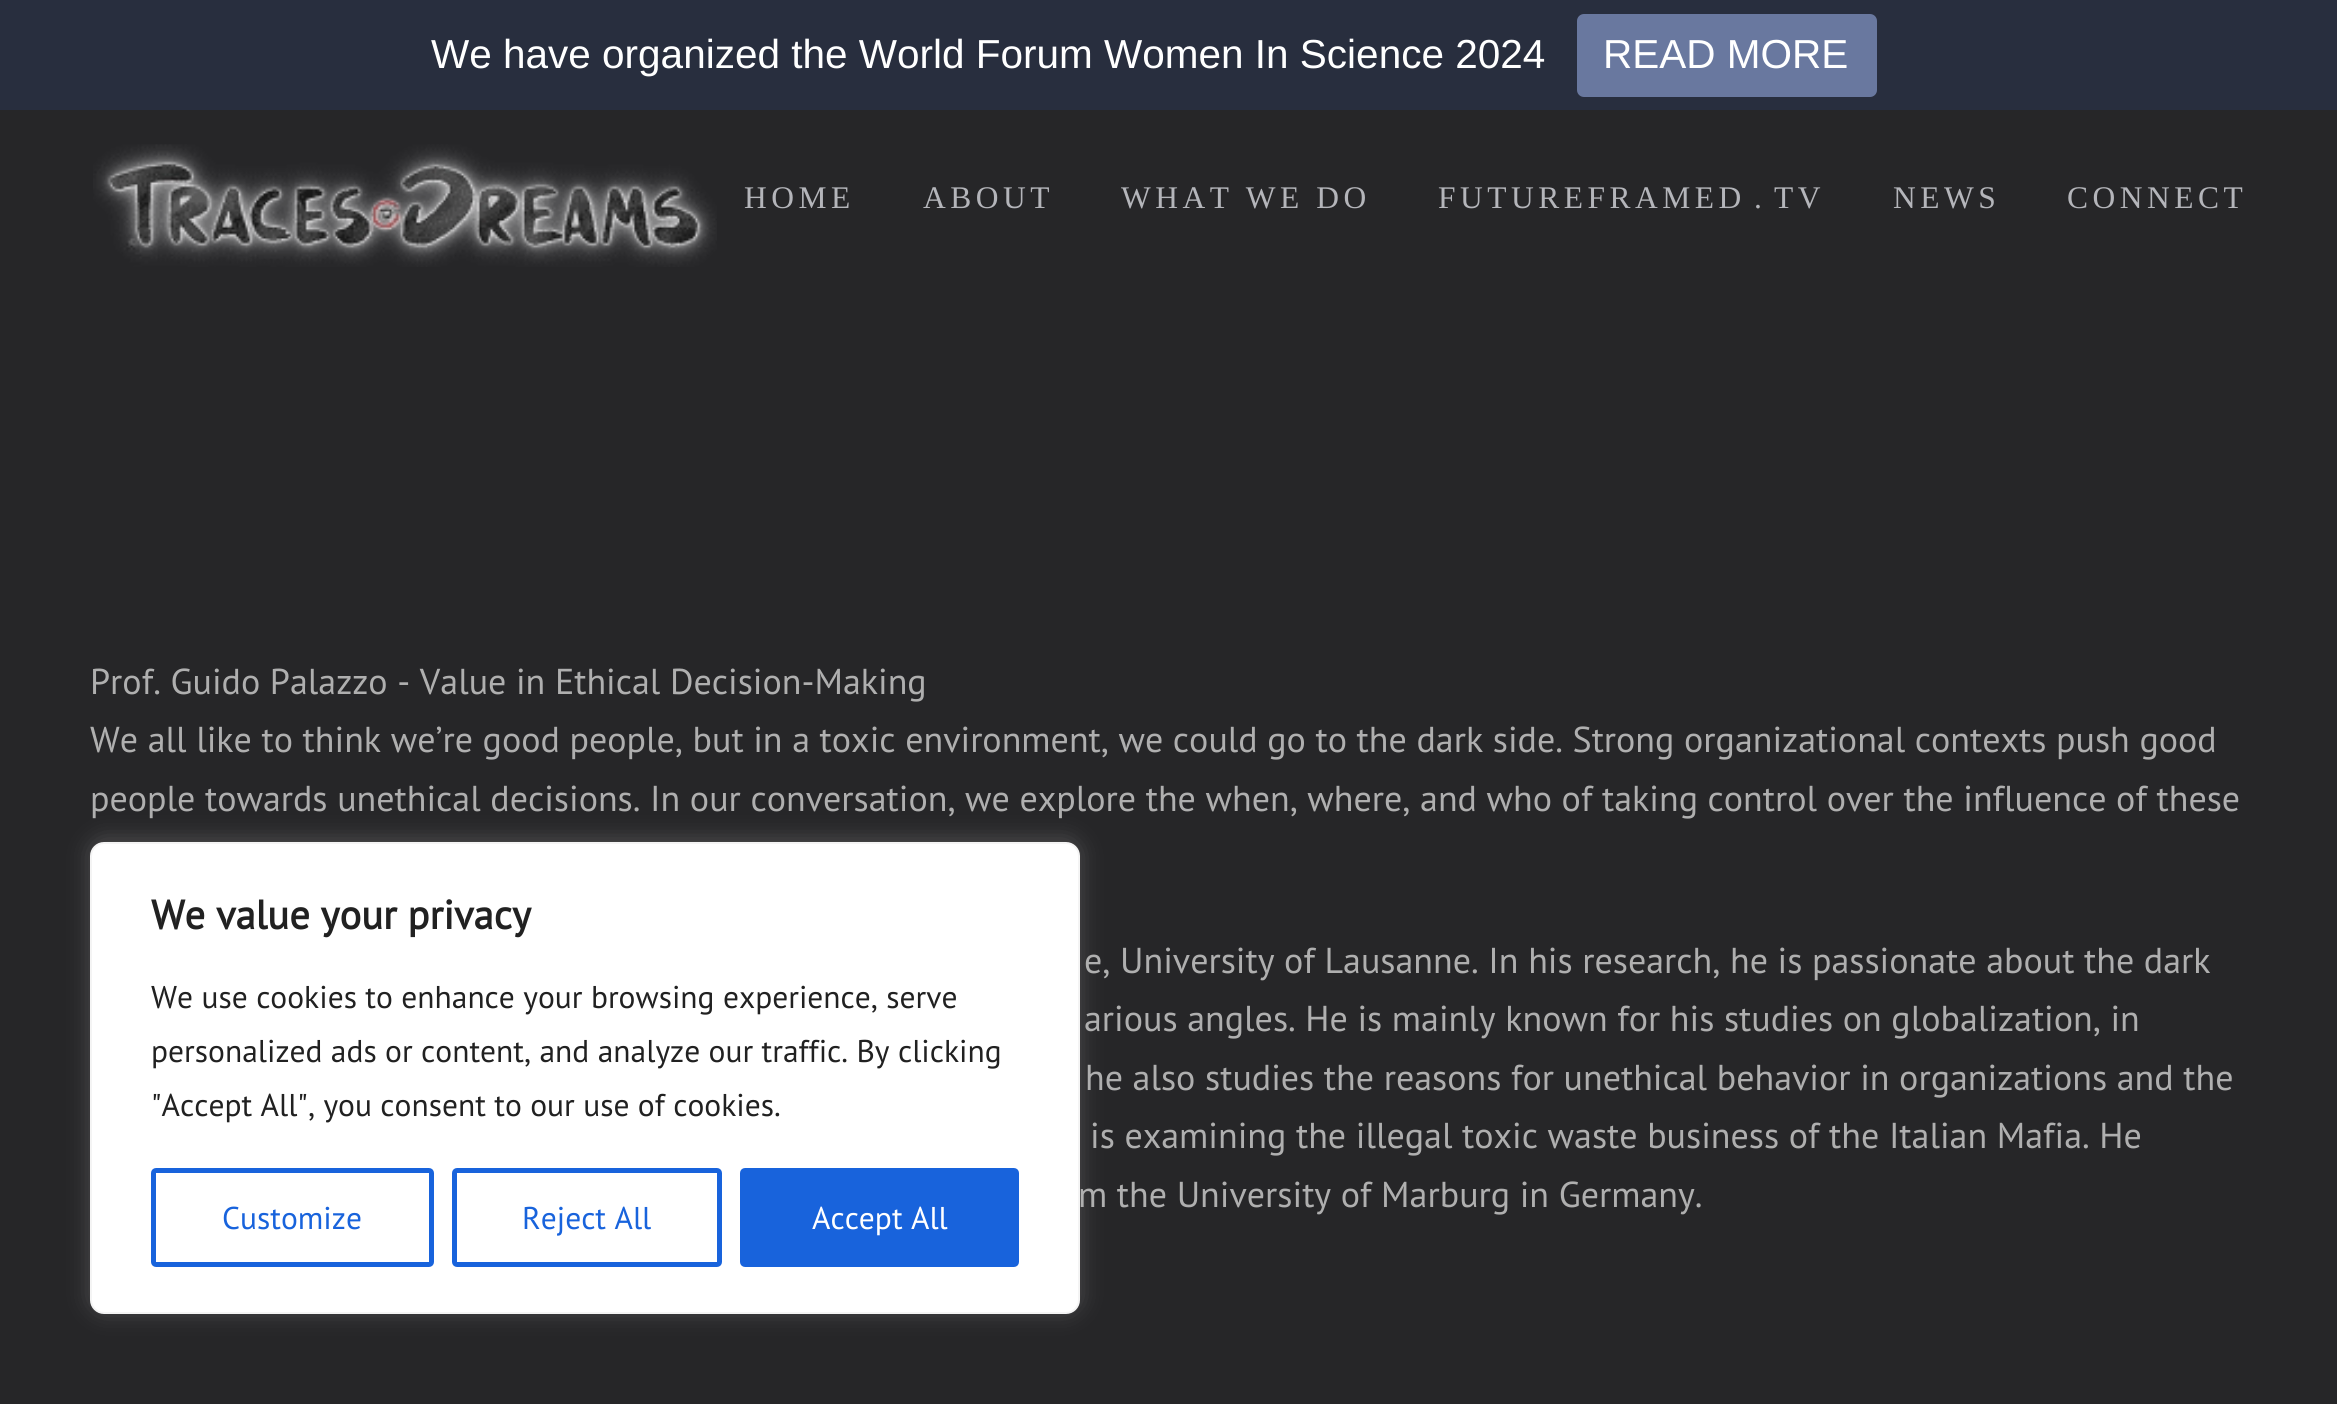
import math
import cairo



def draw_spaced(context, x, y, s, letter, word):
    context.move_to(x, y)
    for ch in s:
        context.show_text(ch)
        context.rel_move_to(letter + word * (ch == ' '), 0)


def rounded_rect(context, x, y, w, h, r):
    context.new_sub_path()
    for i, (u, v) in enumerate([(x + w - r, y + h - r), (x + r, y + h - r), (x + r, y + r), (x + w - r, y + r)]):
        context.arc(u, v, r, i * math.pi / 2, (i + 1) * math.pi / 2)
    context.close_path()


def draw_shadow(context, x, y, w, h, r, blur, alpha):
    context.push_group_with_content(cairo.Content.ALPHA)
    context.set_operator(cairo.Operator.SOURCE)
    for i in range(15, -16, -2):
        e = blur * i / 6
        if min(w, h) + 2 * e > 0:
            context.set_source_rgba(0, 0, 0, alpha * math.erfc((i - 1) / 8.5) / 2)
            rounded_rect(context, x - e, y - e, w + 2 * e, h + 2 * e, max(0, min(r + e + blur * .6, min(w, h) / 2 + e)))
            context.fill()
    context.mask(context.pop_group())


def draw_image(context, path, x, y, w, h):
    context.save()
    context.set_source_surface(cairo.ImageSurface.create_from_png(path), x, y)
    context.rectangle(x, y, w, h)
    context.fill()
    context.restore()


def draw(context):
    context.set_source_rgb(38 / 255, 38 / 255, 40 / 255)
    context.paint()
    context.set_source_rgb(40 / 255, 46 / 255, 62 / 255)
    context.rectangle(0, 0, 2337, 110)
    context.fill()
    context.set_source_rgb(105 / 255, 120 / 255, 159 / 255)
    rounded_rect(context, 1577, 14, 300, 83, 7)
    context.fill()
    draw_image(context, "images/1.png", 93, 144, 624, 123)
    context.set_source_rgb(172 / 255, 171 / 255, 171 / 255)
    draw_shadow(context, 90, 839, 990, 473, 14, 11, 0.3)
    context.set_source_rgb(1, 1, 1)
    rounded_rect(context, 91, 843, 988, 470, 13)
    context.fill_preserve()
    context.set_source_rgb(244 / 255, 244 / 255, 244 / 255)
    context.stroke()
    rounded_rect(context, 153.5, 1170.5, 278, 94, 2.5)
    context.set_source_rgb(24 / 255, 99 / 255, 220 / 255)
    context.set_line_width(5)
    context.stroke()
    rounded_rect(context, 454.5, 1170.5, 265, 94, 2.5)
    context.stroke()
    rounded_rect(context, 742.5, 1170.5, 274, 94, 2.5)
    context.fill_preserve()
    context.stroke()
    context.select_font_face("Liberation Sans")
    context.set_font_size(40.5)
    context.set_source_rgb(1, 1, 1)
    context.move_to(431, 68)
    context.show_text("We have organized the World Forum Women In Science 2024")
    context.move_to(1603, 68)
    context.show_text("READ MORE")
    context.select_font_face("Liberation Serif")
    context.set_font_size(31.5)
    context.set_source_rgb(180 / 255, 181 / 255, 186 / 255)
    draw_spaced(context, 744, 208, "HOME", 4.5, 0)
    draw_spaced(context, 923, 208, "ABOUT", 4.5, 0)
    draw_spaced(context, 1121, 208, "WHAT WE DO", 4.5, 0)
    draw_spaced(context, 1438, 208, "FUTUREFRAMED", 4.5, 0)
    draw_spaced(context, 1754, 208, ".", 4.5, 0)
    draw_spaced(context, 1774, 208, "TV", 4.5, 0)
    draw_spaced(context, 1893, 208, "NEWS", 4.5, 0)
    draw_spaced(context, 2067, 208, "CONNECT", 4.5, 0)
    context.select_font_face("PT Sans")
    context.set_font_size(36)
    context.set_source_rgb(175 / 255, 175 / 255, 175 / 255)
    context.move_to(90, 694)
    context.show_text("Prof. Guido Palazzo - Value in Ethical Decision-Making")
    context.move_to(90, 752)
    context.show_text("We all like to think we’re good people, but in a toxic environment, we could go to the dark side. Strong organizational contexts push good")
    context.move_to(90, 811)
    context.show_text("people towards unethical decisions. In our conversation, we explore the when, where, and who of taking control over the influence of these")
    context.move_to(1084, 973)
    context.show_text("e, University of Lausanne. In his research, he is passionate about the dark")
    context.move_to(1084, 1031)
    context.show_text("arious angles. He is mainly known for his studies on globalization, in")
    context.move_to(1085, 1090)
    context.show_text("he also studies the reasons for unethical behavior in organizations and the")
    context.move_to(1090, 1148)
    context.show_text("is examining the illegal toxic waste business of the Italian Mafia. He")
    context.move_to(1078, 1207)
    context.show_text("m the University of Marburg in Germany.")
    context.select_font_face("PT Sans", cairo.FontSlant.NORMAL, cairo.FontWeight.BOLD)
    context.set_font_size(40.5)
    context.set_source_rgb(33 / 255, 33 / 255, 33 / 255)
    context.move_to(151, 929)
    context.show_text("We value your privacy")
    context.select_font_face("PT Sans")
    context.set_font_size(31.5)
    context.move_to(151, 1008)
    context.show_text("We use cookies to enhance your browsing experience, serve")
    context.move_to(151, 1062)
    context.show_text("personalized ads or content, and analyze our traffic. By clicking")
    context.move_to(151, 1116)
    context.show_text("\"Accept All\", you consent to our use of cookies.")
    context.set_source_rgb(24 / 255, 99 / 255, 220 / 255)
    context.move_to(222, 1229)
    context.show_text("Customize")
    context.move_to(522, 1229)
    context.show_text("Reject All")
    context.set_source_rgb(1, 1, 1)
    context.move_to(812, 1229)
    context.show_text("Accept All")


surface = cairo.ImageSurface(cairo.Format.RGB24, 2337, 1404)
context = cairo.Context(surface)
options = cairo.FontOptions()
options.set_hint_metrics(cairo.HintMetrics.OFF)
options.set_hint_style(cairo.HintStyle.NONE)
context.set_font_options(options)
context.set_miter_limit(4)
draw(context)
surface.write_to_png("out.png")
